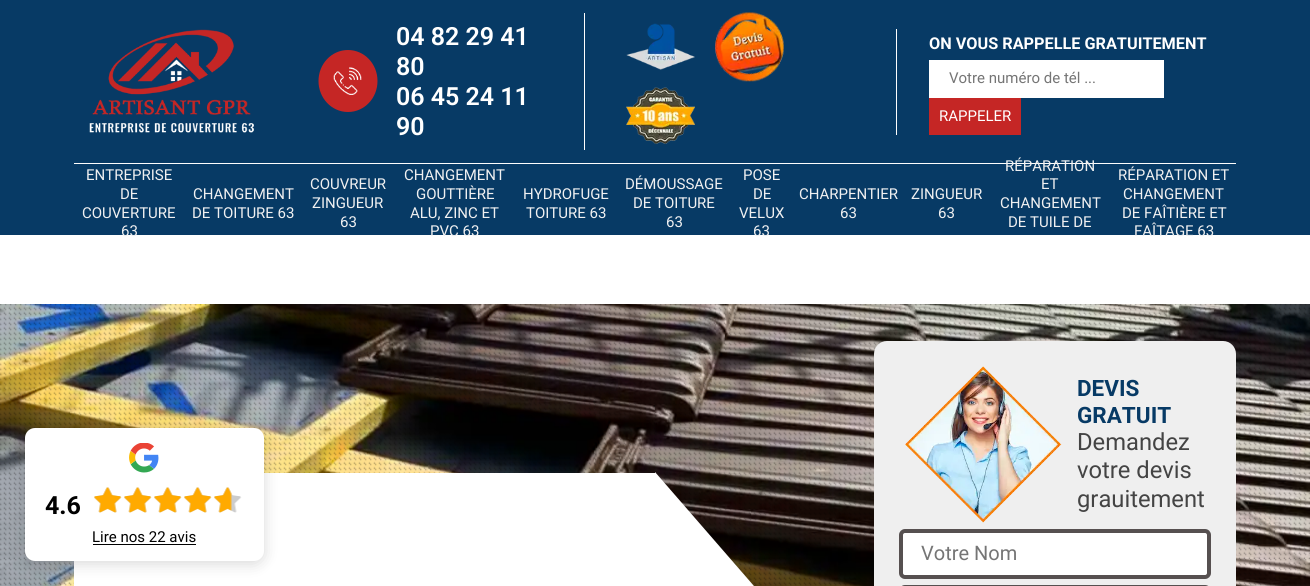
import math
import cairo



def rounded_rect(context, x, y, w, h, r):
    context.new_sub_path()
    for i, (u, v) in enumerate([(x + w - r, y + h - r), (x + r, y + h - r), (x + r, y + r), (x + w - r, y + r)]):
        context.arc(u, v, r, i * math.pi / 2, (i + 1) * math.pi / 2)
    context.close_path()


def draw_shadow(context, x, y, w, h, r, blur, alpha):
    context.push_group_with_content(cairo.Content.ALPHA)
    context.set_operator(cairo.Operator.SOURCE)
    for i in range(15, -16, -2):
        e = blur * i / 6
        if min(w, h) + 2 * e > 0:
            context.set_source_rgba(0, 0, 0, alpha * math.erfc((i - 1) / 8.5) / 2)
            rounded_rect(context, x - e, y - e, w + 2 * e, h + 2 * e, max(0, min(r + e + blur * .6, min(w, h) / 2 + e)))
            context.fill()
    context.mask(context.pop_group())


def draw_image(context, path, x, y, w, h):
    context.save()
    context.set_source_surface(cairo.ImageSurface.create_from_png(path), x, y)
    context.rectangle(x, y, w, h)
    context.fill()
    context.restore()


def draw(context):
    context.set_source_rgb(1, 1, 1)
    context.paint()
    context.set_source_rgb(7 / 255, 58 / 255, 101 / 255)
    context.rectangle(0, 0, 1310, 235)
    context.fill()
    draw_image(context, "images/1.png", 89, 29, 165, 104)
    context.set_source_rgb(197 / 255, 38 / 255, 37 / 255)
    context.new_path()
    context.move_to(348, 50)
    context.curve_to(364.5, 50, 377.5, 64, 377.5, 81)
    context.curve_to(377.5, 98, 364.5, 112, 348, 112)
    context.curve_to(331.5, 112, 318.5, 98, 318.5, 81)
    context.curve_to(318.5, 64, 331.5, 50, 348, 50)
    context.close_path()
    context.fill()
    draw_image(context, "images/2.png", 333, 67, 29, 28)
    context.set_source_rgb(253 / 255, 253 / 255, 253 / 255)
    context.rectangle(584, 13, 1, 137)
    context.fill()
    draw_image(context, "images/3.png", 626, 23, 69, 47)
    draw_image(context, "images/4.png", 715, 12, 69, 70)
    draw_image(context, "images/5.png", 626, 87, 69, 57)
    context.rectangle(896, 29, 1, 106)
    context.fill()
    context.set_source_rgb(1, 1, 1)
    context.rectangle(929, 60, 235, 38)
    context.fill()
    context.set_source_rgb(197 / 255, 38 / 255, 37 / 255)
    context.rectangle(929, 98, 92, 37)
    context.fill()
    context.set_source_rgb(253 / 255, 253 / 255, 253 / 255)
    context.rectangle(74, 163, 1162, 1)
    context.fill()
    draw_image(context, "images/6.png", 0, 304, 1310, 282)
    draw_image(context, "images/7.png", 0, 304, 1310, 282)
    context.set_source_rgb(1, 1, 1)
    context.rectangle(74, 473, 581, 113)
    context.fill()
    context.new_path()
    context.move_to(655, 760)
    context.line_to(655, 472)
    context.line_to(780, 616)
    context.close_path()
    context.fill()
    context.set_source_rgb(0, 0, 0)
    draw_shadow(context, 25, 430, 239, 134, 10, 7.5, 0.15)
    context.set_source_rgb(1, 1, 1)
    rounded_rect(context, 25, 428, 239, 133, 10)
    context.fill()
    draw_image(context, "images/8.png", 129, 443, 30, 30)
    draw_image(context, "images/9.png", 94, 487, 148, 26)
    draw_image(context, "images/10.png", 94, 487, 138, 26)
    context.set_source_rgb(0, 0, 0)
    context.rectangle(93, 544, 103, 1)
    context.fill()
    context.set_source_rgb(239 / 255, 239 / 255, 239 / 255)
    rounded_rect(context, 874, 341, 362, 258, 13)
    context.fill()
    draw_image(context, "images/11.png", 905, 366, 157, 157)
    context.set_source_rgb(1, 1, 1)
    rounded_rect(context, 901, 531, 308, 46, 4)
    context.fill_preserve()
    context.set_source_rgb(86 / 255, 80 / 255, 80 / 255)
    context.set_line_width(4)
    context.stroke()
    rounded_rect(context, 901, 587, 308, 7, 4)
    context.stroke()
    context.select_font_face("Roboto SemiBold")
    context.set_font_size(25)
    context.set_source_rgb(1, 1, 1)
    context.move_to(396, 45)
    context.show_text("04 82 29 41")
    context.move_to(396, 75)
    context.show_text("80")
    context.move_to(396, 105)
    context.show_text("06 45 24 11")
    context.move_to(396, 135)
    context.show_text("90")
    context.select_font_face("Roboto", cairo.FontSlant.NORMAL, cairo.FontWeight.BOLD)
    context.set_font_size(16.25)
    context.move_to(929, 49)
    context.show_text("ON VOUS RAPPELLE GRATUITEMENT")
    context.select_font_face("Roboto")
    context.set_font_size(15)
    context.set_source_rgb(117 / 255, 117 / 255, 117 / 255)
    context.move_to(949, 83)
    context.show_text("Votre numéro de tél ...")
    context.set_source_rgb(1, 1, 1)
    context.move_to(939, 121)
    context.show_text("RAPPELER")
    context.set_source_rgb(240 / 255, 240 / 255, 241 / 255)
    context.move_to(86, 180)
    context.show_text("ENTREPRISE")
    context.move_to(120, 199)
    context.show_text("DE")
    context.move_to(82, 218)
    context.show_text("COUVERTURE")
    context.move_to(121, 236)
    context.show_text("63")
    context.move_to(193, 199)
    context.show_text("CHANGEMENT")
    context.move_to(192, 218)
    context.show_text("DE TOITURE 63")
    context.move_to(310, 189)
    context.show_text("COUVREUR")
    context.move_to(312, 208)
    context.show_text("ZINGUEUR")
    context.move_to(340, 227)
    context.show_text("63")
    context.move_to(404, 180)
    context.show_text("CHANGEMENT")
    context.move_to(416, 199)
    context.show_text("GOUTTIÈRE")
    context.move_to(410, 218)
    context.show_text("ALU, ZINC ET")
    context.move_to(430, 236)
    context.show_text("PVC 63")
    context.move_to(523, 199)
    context.show_text("HYDROFUGE")
    context.move_to(526, 218)
    context.show_text("TOITURE 63")
    context.move_to(625, 189)
    context.show_text("DÉMOUSSAGE")
    context.move_to(633, 208)
    context.show_text("DE TOITURE")
    context.move_to(666, 227)
    context.show_text("63")
    context.move_to(743, 180)
    context.show_text("POSE")
    context.move_to(753, 199)
    context.show_text("DE")
    context.move_to(739, 218)
    context.show_text("VELUX")
    context.move_to(753, 236)
    context.show_text("63")
    context.move_to(799, 199)
    context.show_text("CHARPENTIER")
    context.move_to(840, 218)
    context.show_text("63")
    context.move_to(911, 199)
    context.show_text("ZINGUEUR")
    context.move_to(938, 218)
    context.show_text("63")
    context.move_to(1005, 171)
    context.show_text("RÉPARATION")
    context.move_to(1041, 189)
    context.show_text("ET")
    context.move_to(1000, 208)
    context.show_text("CHANGEMENT")
    context.move_to(1008, 227)
    context.show_text("DE TUILE DE")
    context.move_to(1118, 180)
    context.show_text("RÉPARATION ET")
    context.move_to(1123, 199)
    context.show_text("CHANGEMENT")
    context.move_to(1122, 218)
    context.show_text("DE FAÎTIÈRE ET")
    context.move_to(1134, 236)
    context.show_text("FAÎTAGE 63")
    context.select_font_face("Roboto", cairo.FontSlant.NORMAL, cairo.FontWeight.BOLD)
    context.set_font_size(25)
    context.set_source_rgb(0, 0, 0)
    context.move_to(45, 514)
    context.show_text("4.6")
    context.select_font_face("Roboto")
    context.set_font_size(15)
    context.move_to(92, 542)
    context.show_text("Lire nos 22 avis")
    context.select_font_face("Roboto", cairo.FontSlant.NORMAL, cairo.FontWeight.BOLD)
    context.set_font_size(22.5)
    context.set_source_rgb(7 / 255, 58 / 255, 101 / 255)
    context.move_to(1077, 396)
    context.show_text("DEVIS")
    context.move_to(1077, 423)
    context.show_text("GRATUIT")
    context.select_font_face("Roboto")
    context.set_font_size(23.75)
    context.set_source_rgb(68 / 255, 68 / 255, 68 / 255)
    context.move_to(1077, 450)
    context.show_text("Demandez")
    context.move_to(1077, 478)
    context.show_text("votre devis")
    context.move_to(1077, 507)
    context.show_text("grauitement")
    context.set_font_size(20)
    context.set_source_rgb(117 / 255, 117 / 255, 117 / 255)
    context.move_to(921, 560)
    context.show_text("Votre Nom")


surface = cairo.ImageSurface(cairo.Format.RGB24, 1310, 586)
context = cairo.Context(surface)
options = cairo.FontOptions()
options.set_hint_metrics(cairo.HintMetrics.OFF)
options.set_hint_style(cairo.HintStyle.NONE)
context.set_font_options(options)
context.set_miter_limit(4)
draw(context)
surface.write_to_png("out.png")
